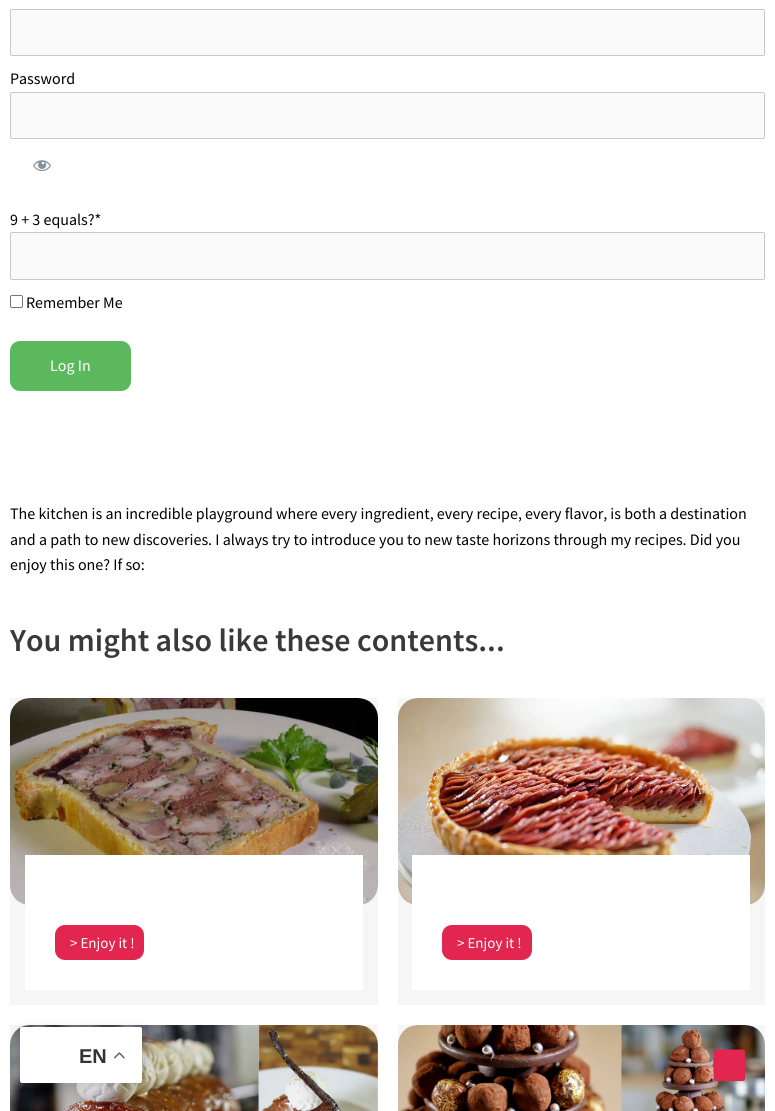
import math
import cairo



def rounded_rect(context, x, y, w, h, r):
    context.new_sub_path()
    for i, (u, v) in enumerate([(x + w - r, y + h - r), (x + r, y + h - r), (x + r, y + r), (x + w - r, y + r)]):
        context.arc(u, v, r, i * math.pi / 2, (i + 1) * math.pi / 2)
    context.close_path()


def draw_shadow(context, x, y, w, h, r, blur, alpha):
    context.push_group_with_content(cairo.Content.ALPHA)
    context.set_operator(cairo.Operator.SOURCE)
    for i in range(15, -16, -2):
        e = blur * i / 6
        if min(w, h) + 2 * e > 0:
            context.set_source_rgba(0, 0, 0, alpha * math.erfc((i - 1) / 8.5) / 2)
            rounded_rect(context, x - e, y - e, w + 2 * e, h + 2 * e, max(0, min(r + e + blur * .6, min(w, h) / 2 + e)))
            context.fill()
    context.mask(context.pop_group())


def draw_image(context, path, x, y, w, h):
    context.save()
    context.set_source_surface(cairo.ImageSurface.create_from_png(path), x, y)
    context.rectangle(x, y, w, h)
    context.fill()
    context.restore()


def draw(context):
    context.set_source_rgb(1, 1, 1)
    context.paint()
    context.set_source_rgb(250 / 255, 250 / 255, 250 / 255)
    rounded_rect(context, 10.5, 9.5, 754, 46, 1.5)
    context.fill_preserve()
    context.set_source_rgb(200 / 255, 200 / 255, 200 / 255)
    context.set_line_width(1)
    context.stroke()
    context.set_source_rgb(250 / 255, 250 / 255, 250 / 255)
    rounded_rect(context, 10.5, 92.5, 754, 46, 1.5)
    context.fill_preserve()
    context.set_source_rgb(200 / 255, 200 / 255, 200 / 255)
    context.stroke()
    draw_image(context, "images/1.png", 33, 160, 18, 12)
    context.set_source_rgb(250 / 255, 250 / 255, 250 / 255)
    rounded_rect(context, 10.5, 232.5, 754, 47, 1.5)
    context.fill_preserve()
    context.set_source_rgb(200 / 255, 200 / 255, 200 / 255)
    context.stroke()
    rounded_rect(context, 10.5, 295.5, 12, 12, 1.5)
    context.set_source_rgb(118 / 255, 118 / 255, 118 / 255)
    context.stroke()
    context.set_source_rgb(91 / 255, 184 / 255, 93 / 255)
    rounded_rect(context, 10, 341, 121, 50, 10)
    context.fill()
    context.set_source_rgb(246 / 255, 246 / 255, 246 / 255)
    context.rectangle(10, 698, 368, 307)
    context.fill()
    draw_image(context, "images/2.png", 10, 698, 368, 207)
    context.set_source_rgb(1, 1, 1)
    context.rectangle(25, 855, 338, 135)
    context.fill()
    context.set_source_rgb(227 / 255, 38 / 255, 79 / 255)
    rounded_rect(context, 55, 925, 89, 35, 10)
    context.fill()
    context.set_source_rgb(246 / 255, 246 / 255, 246 / 255)
    context.rectangle(398, 698, 367, 307)
    context.fill()
    draw_image(context, "images/3.png", 398, 698, 367, 207)
    context.set_source_rgb(1, 1, 1)
    context.rectangle(412, 855, 338, 135)
    context.fill()
    context.set_source_rgb(227 / 255, 38 / 255, 79 / 255)
    rounded_rect(context, 442, 925, 90, 35, 10)
    context.fill()
    context.set_source_rgb(246 / 255, 246 / 255, 246 / 255)
    context.rectangle(10, 1025, 368, 20)
    context.fill()
    draw_image(context, "images/4.png", 10, 1025, 368, 86)
    context.rectangle(398, 1025, 367, 20)
    context.fill()
    draw_image(context, "images/5.png", 398, 1025, 367, 86)
    context.set_source_rgb(0, 0, 0)
    draw_shadow(context, 20, 1032, 122, 56, 2, 7.5, 0.15)
    context.set_source_rgb(1, 1, 1)
    rounded_rect(context, 20, 1027, 122, 56, 2)
    context.fill()
    draw_image(context, "images/6.png", 114, 1052, 11, 7)
    context.set_source_rgb(227 / 255, 38 / 255, 79 / 255)
    context.new_path()
    context.move_to(743, 1081)
    context.line_to(715.5, 1081)
    context.curve_to(714.5, 1081, 713.5, 1080, 713.5, 1079)
    context.line_to(713.5, 1051.5)
    context.curve_to(713.5, 1050.5, 714.5, 1049.5, 715.5, 1049.5)
    context.line_to(743, 1049.5)
    context.curve_to(744, 1049.5, 745, 1050.5, 745, 1051.5)
    context.line_to(745, 1079)
    context.curve_to(745, 1080, 744, 1081, 743, 1081)
    context.close_path()
    context.fill()
    context.select_font_face("Source Sans Pro")
    context.set_font_size(16)
    context.set_source_rgb(0, 0, 0)
    context.move_to(10, 84)
    context.show_text("Password")
    context.move_to(10, 225)
    context.show_text("9 + 3 equals?*")
    context.move_to(26, 308)
    context.show_text("Remember Me")
    context.set_source_rgb(1, 1, 1)
    context.move_to(50, 371)
    context.show_text("Log In")
    context.set_source_rgb(0, 0, 0)
    context.move_to(10, 519)
    context.show_text("The kitchen is an incredible playground where every ingredient, every recipe, every flavor, is both a destination")
    context.move_to(10, 545)
    context.show_text("and a path to new discoveries. I always try to introduce you to new taste horizons through my recipes. Did you")
    context.move_to(10, 570)
    context.show_text("enjoy this one? If so:")
    context.select_font_face("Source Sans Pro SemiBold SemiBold")
    context.set_font_size(32)
    context.set_source_rgb(58 / 255, 58 / 255, 58 / 255)
    context.move_to(10, 651)
    context.show_text("You might also like these contents...")
    context.select_font_face("Source Sans Pro")
    context.set_font_size(15)
    context.set_source_rgb(1, 1, 1)
    context.move_to(70, 948)
    context.show_text("> Enjoy it !")
    context.move_to(457, 948)
    context.show_text("> Enjoy it !")
    context.select_font_face("Liberation Sans", cairo.FontSlant.NORMAL, cairo.FontWeight.BOLD)
    context.set_font_size(20)
    context.set_source_rgb(51 / 255, 51 / 255, 51 / 255)
    context.move_to(79, 1063)
    context.show_text("EN")


surface = cairo.ImageSurface(cairo.Format.RGB24, 775, 1111)
context = cairo.Context(surface)
options = cairo.FontOptions()
options.set_hint_metrics(cairo.HintMetrics.OFF)
options.set_hint_style(cairo.HintStyle.NONE)
context.set_font_options(options)
context.set_miter_limit(4)
draw(context)
surface.write_to_png("out.png")
